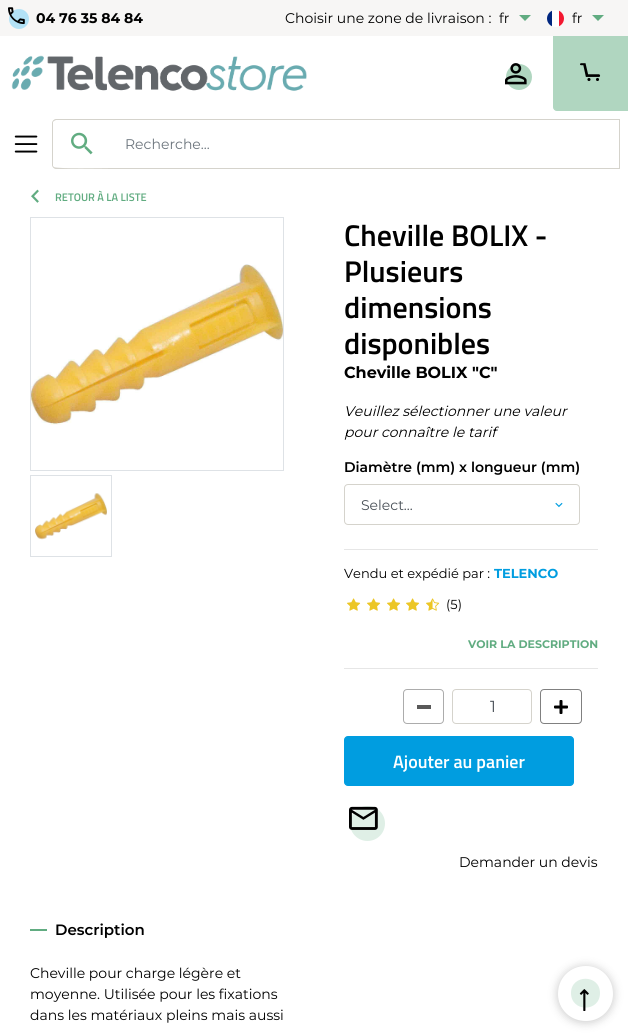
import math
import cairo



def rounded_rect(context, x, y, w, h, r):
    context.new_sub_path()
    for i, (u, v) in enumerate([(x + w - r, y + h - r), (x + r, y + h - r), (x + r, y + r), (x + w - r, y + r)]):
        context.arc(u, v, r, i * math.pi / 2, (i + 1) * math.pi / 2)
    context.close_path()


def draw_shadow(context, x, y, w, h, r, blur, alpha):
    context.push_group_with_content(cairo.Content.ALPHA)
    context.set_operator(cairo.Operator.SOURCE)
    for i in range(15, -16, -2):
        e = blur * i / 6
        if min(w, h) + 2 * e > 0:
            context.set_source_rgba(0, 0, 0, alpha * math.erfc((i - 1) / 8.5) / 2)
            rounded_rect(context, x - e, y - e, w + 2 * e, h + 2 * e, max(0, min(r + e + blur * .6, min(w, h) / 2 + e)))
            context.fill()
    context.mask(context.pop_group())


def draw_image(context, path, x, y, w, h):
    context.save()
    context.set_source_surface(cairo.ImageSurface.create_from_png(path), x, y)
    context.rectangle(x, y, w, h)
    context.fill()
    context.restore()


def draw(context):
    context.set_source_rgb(1, 1, 1)
    context.paint()
    context.set_source_rgb(247 / 255, 246 / 255, 245 / 255)
    context.rectangle(0, 0, 628, 36)
    context.fill()
    context.set_source_rgb(179 / 255, 226 / 255, 246 / 255)
    context.arc(19, 19, 10, 0, 2 * math.pi)
    context.fill()
    draw_image(context, "images/1.png", 8, 7, 17, 18)
    context.set_source_rgb(97 / 255, 172 / 255, 129 / 255)
    context.new_path()
    context.move_to(519, 15)
    context.line_to(531, 15)
    context.line_to(525, 21)
    context.close_path()
    context.fill()
    context.set_source_rgb(1, 1, 1)
    context.arc(555.5, 18.5, 8.5, 0, 2 * math.pi)
    context.fill()
    context.save()
    rounded_rect(context, 547, 10, 17, 17, 8.5)
    context.clip()
    context.set_source_rgb(0, 38 / 255, 127 / 255)
    context.rectangle(547, 10, 5, 17)
    context.fill()
    context.set_source_rgb(243 / 255, 24 / 255, 48 / 255)
    context.rectangle(559, 10, 5, 17)
    context.fill()
    context.restore()
    context.set_source_rgb(97 / 255, 172 / 255, 129 / 255)
    context.new_path()
    context.move_to(592, 15)
    context.line_to(604, 15)
    context.line_to(598, 21)
    context.close_path()
    context.fill()
    draw_image(context, "images/2.png", 14, 135, 24, 18)
    draw_image(context, "images/3.png", 11, 55, 296, 36)
    context.set_source_rgb(176 / 255, 214 / 255, 192 / 255)
    context.arc(519, 77, 13, 0, 2 * math.pi)
    context.fill()
    draw_image(context, "images/4.png", 505, 63, 22, 22)
    context.new_path()
    context.move_to(553.5, 36.5)
    context.line_to(627.5, 36.5)
    context.line_to(627.5, 110.5)
    context.line_to(557, 110.5)
    context.curve_to(555, 110.5, 553.5, 109, 553.5, 107)
    context.close_path()
    context.fill_preserve()
    context.set_line_width(1)
    context.stroke()
    draw_image(context, "images/5.png", 580, 63, 21, 18)
    context.rectangle(110.5, 119.5, 509, 49)
    context.set_source_rgb(213 / 255, 211 / 255, 204 / 255)
    context.stroke()
    context.set_source_rgb(1, 1, 1)
    context.new_path()
    context.move_to(56, 119)
    context.line_to(111, 119)
    context.line_to(111, 169)
    context.line_to(56, 169)
    context.curve_to(54, 169, 52, 167, 52, 165)
    context.line_to(52, 123)
    context.curve_to(52, 121, 54, 119, 56, 119)
    context.close_path()
    context.fill()
    context.set_source_rgb(213 / 255, 211 / 255, 204 / 255)
    context.set_fill_rule(cairo.FillRule.EVEN_ODD)
    context.new_path()
    context.move_to(56, 119)
    context.line_to(111, 119)
    context.line_to(111, 169)
    context.line_to(56, 169)
    context.curve_to(54, 169, 52, 167, 52, 165)
    context.line_to(52, 123)
    context.curve_to(52, 121, 54, 119, 56, 119)
    context.close_path()
    context.move_to(56, 120)
    context.line_to(111, 120)
    context.line_to(111, 168)
    context.curve_to(105, 168, 56, 169, 54, 167)
    context.line_to(53, 166)
    context.line_to(53, 122)
    context.line_to(54, 121)
    context.close_path()
    context.fill()
    draw_image(context, "images/6.png", 71, 132, 22, 23)
    draw_image(context, "images/7.png", 31, 189, 8, 14)
    context.rectangle(30.5, 217.5, 253, 253)
    context.set_source_rgb(222 / 255, 226 / 255, 230 / 255)
    context.stroke()
    draw_image(context, "images/8.png", 31, 264, 252, 161)
    context.rectangle(30.5, 475.5, 81, 81)
    context.stroke()
    draw_image(context, "images/9.png", 35, 493, 72, 47)
    draw_image(context, "images/10.png", 555, 502, 8, 6)
    rounded_rect(context, 344.5, 484.5, 235, 40, 3.5)
    context.set_source_rgb(213 / 255, 211 / 255, 204 / 255)
    context.stroke()
    context.set_source_rgb(230 / 255, 230 / 255, 230 / 255)
    context.rectangle(344, 549, 254, 1)
    context.fill()
    draw_image(context, "images/11.png", 347, 598, 14, 13)
    draw_image(context, "images/11.png", 367, 598, 14, 13)
    draw_image(context, "images/11.png", 387, 598, 14, 13)
    draw_image(context, "images/11.png", 406, 598, 14, 13)
    draw_image(context, "images/12.png", 426, 598, 14, 13)
    context.rectangle(344, 668, 254, 1)
    context.fill()
    rounded_rect(context, 403.5, 689.5, 40, 34, 3.5)
    context.set_source_rgb(172 / 255, 172 / 255, 172 / 255)
    context.stroke()
    context.set_source_rgb(89 / 255, 89 / 255, 89 / 255)
    context.rectangle(417, 705, 14, 4)
    context.fill()
    rounded_rect(context, 452.5, 689.5, 79, 34, 3.5)
    context.set_source_rgb(213 / 255, 211 / 255, 204 / 255)
    context.stroke()
    rounded_rect(context, 540.5, 689.5, 41, 34, 3.5)
    context.set_source_rgb(128 / 255, 128 / 255, 128 / 255)
    context.stroke()
    draw_image(context, "images/13.png", 554, 700, 14, 14)
    context.set_source_rgb(0, 157 / 255, 224 / 255)
    rounded_rect(context, 344.5, 736.5, 229, 49, 3.5)
    context.fill_preserve()
    context.stroke()
    context.set_source_rgb(223 / 255, 239 / 255, 230 / 255)
    context.arc(367.5, 823.5, 17.5, 0, 2 * math.pi)
    context.fill()
    draw_image(context, "images/14.png", 349, 806, 29, 24)
    context.set_source_rgb(97 / 255, 172 / 255, 129 / 255)
    context.rectangle(30, 929, 17, 2)
    context.fill()
    context.set_source_rgb(0, 0, 0)
    draw_shadow(context, 557, 966, 57, 57, 28.5, 4.5, 0.19)
    context.set_source_rgb(1, 1, 1)
    context.set_fill_rule(cairo.FillRule.WINDING)
    context.new_path()
    context.move_to(558, 994)
    context.curve_to(558, 978, 570, 966, 586, 966)
    context.curve_to(601, 966, 613, 978, 613, 994)
    context.curve_to(613, 1009, 601, 1021, 586, 1021)
    context.curve_to(570, 1021, 558, 1009, 558, 994)
    context.close_path()
    context.fill()
    context.set_source_rgb(223 / 255, 239 / 255, 230 / 255)
    context.new_path()
    context.move_to(571, 993)
    context.curve_to(571, 974, 600, 974, 600, 993)
    context.curve_to(600, 1012.5, 571, 1012.5, 571, 993)
    context.close_path()
    context.fill()
    draw_image(context, "images/15.png", 579, 989, 10, 22)
    context.select_font_face("Montserrat", cairo.FontSlant.NORMAL, cairo.FontWeight.BOLD)
    context.set_font_size(14)
    context.set_source_rgb(0, 0, 0)
    context.move_to(36, 23)
    context.show_text("04 76 35 84 84")
    context.select_font_face("Montserrat")
    context.move_to(285, 23)
    context.show_text("Choisir une zone de livraison :")
    context.move_to(499, 23)
    context.show_text("fr")
    context.move_to(572, 23)
    context.show_text("fr")
    context.set_source_rgb(108 / 255, 117 / 255, 125 / 255)
    context.move_to(125, 149)
    context.show_text("Recherche...")
    context.select_font_face("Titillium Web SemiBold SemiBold")
    context.set_font_size(11)
    context.set_source_rgb(97 / 255, 172 / 255, 129 / 255)
    context.move_to(55, 201)
    context.show_text("RETOUR À LA LISTE")
    context.set_font_size(30)
    context.set_source_rgb(0, 0, 0)
    context.move_to(344, 246)
    context.show_text("Cheville BOLIX -")
    context.move_to(344, 282)
    context.show_text("Plusieurs")
    context.move_to(344, 318)
    context.show_text("dimensions")
    context.move_to(344, 354)
    context.show_text("disponibles")
    context.select_font_face("Montserrat", cairo.FontSlant.NORMAL, cairo.FontWeight.BOLD)
    context.set_font_size(16)
    context.move_to(344, 378)
    context.show_text("Cheville BOLIX \"C\"")
    context.select_font_face("Montserrat", cairo.FontSlant.ITALIC)
    context.set_font_size(14)
    context.move_to(344, 416)
    context.show_text("Veuillez sélectionner une valeur")
    context.move_to(344, 437)
    context.show_text("pour connaître le tarif")
    context.select_font_face("Montserrat SemiBold")
    context.move_to(344, 472)
    context.show_text("Diamètre (mm) x longueur (mm)")
    context.select_font_face("Montserrat")
    context.set_source_rgb(73 / 255, 80 / 255, 87 / 255)
    context.move_to(361, 510)
    context.show_text("Select...")
    context.set_font_size(13)
    context.set_source_rgb(0, 0, 0)
    context.move_to(344, 578)
    context.show_text("Vendu et expédié par :")
    context.select_font_face("Montserrat", cairo.FontSlant.NORMAL, cairo.FontWeight.BOLD)
    context.set_source_rgb(0, 157 / 255, 224 / 255)
    context.move_to(494, 578)
    context.show_text("TELENCO")
    context.select_font_face("Montserrat")
    context.set_source_rgb(0, 0, 0)
    context.move_to(446, 609)
    context.show_text("(5)")
    context.select_font_face("Montserrat", cairo.FontSlant.NORMAL, cairo.FontWeight.BOLD)
    context.set_font_size(11)
    context.set_source_rgb(97 / 255, 172 / 255, 129 / 255)
    context.move_to(468, 648)
    context.show_text("VOIR LA DESCRIPTION")
    context.select_font_face("Montserrat")
    context.set_font_size(16)
    context.set_source_rgb(73 / 255, 80 / 255, 87 / 255)
    context.move_to(490, 712)
    context.show_text("1")
    context.select_font_face("Titillium Web SemiBold SemiBold")
    context.set_font_size(18)
    context.set_source_rgb(1, 1, 1)
    context.move_to(393, 768)
    context.show_text("Ajouter au panier")
    context.select_font_face("Montserrat")
    context.set_font_size(14)
    context.set_source_rgb(0, 0, 0)
    context.move_to(459, 867)
    context.show_text("Demander un devis")
    context.select_font_face("Montserrat SemiBold")
    context.set_font_size(15)
    context.move_to(55, 935)
    context.show_text("Description")
    context.select_font_face("Montserrat")
    context.set_font_size(14)
    context.move_to(30, 978)
    context.show_text("Cheville pour charge légère et")
    context.move_to(30, 999)
    context.show_text("moyenne. Utilisée pour les fixations")
    context.move_to(30, 1020)
    context.show_text("dans les matériaux pleins mais aussi")


surface = cairo.ImageSurface(cairo.Format.RGB24, 628, 1036)
context = cairo.Context(surface)
options = cairo.FontOptions()
options.set_hint_metrics(cairo.HintMetrics.OFF)
options.set_hint_style(cairo.HintStyle.NONE)
context.set_font_options(options)
context.set_miter_limit(4)
draw(context)
surface.write_to_png("out.png")
